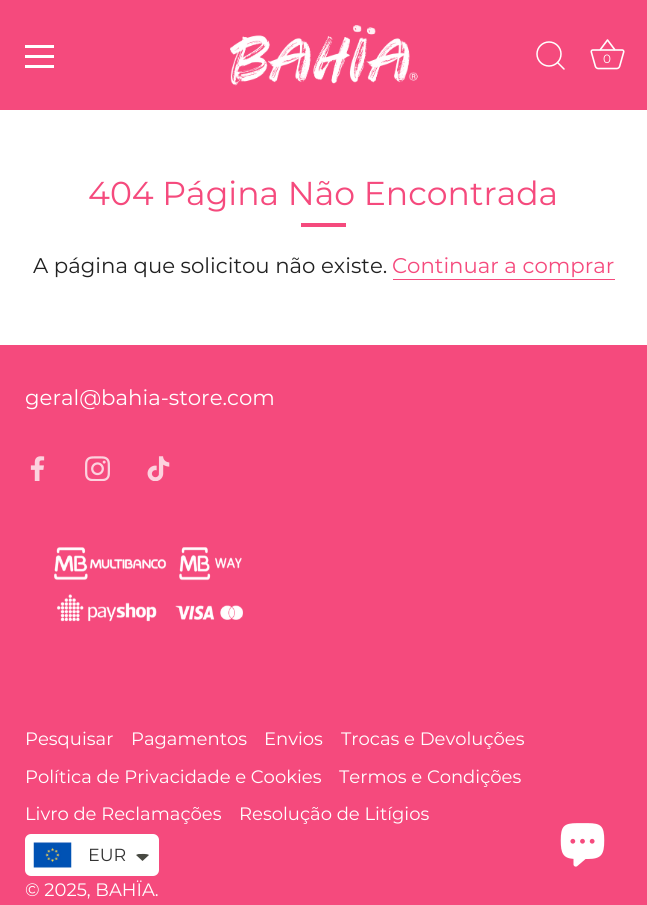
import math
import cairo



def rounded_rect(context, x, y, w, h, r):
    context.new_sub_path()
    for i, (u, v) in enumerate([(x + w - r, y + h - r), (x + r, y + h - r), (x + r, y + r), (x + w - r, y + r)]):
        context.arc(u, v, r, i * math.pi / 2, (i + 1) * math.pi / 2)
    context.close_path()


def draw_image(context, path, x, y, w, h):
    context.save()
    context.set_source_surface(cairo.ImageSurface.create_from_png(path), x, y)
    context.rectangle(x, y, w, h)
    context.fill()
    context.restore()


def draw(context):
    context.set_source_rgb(1, 1, 1)
    context.paint()
    context.set_source_rgb(245 / 255, 74 / 255, 125 / 255)
    context.rectangle(0, 0, 647, 110)
    context.fill()
    context.set_source_rgb(1, 1, 1)
    context.rectangle(25, 45, 29, 3)
    context.fill()
    context.rectangle(25, 55, 29, 3)
    context.fill()
    context.rectangle(25, 65, 29, 3)
    context.fill()
    draw_image(context, "images/1.png", 230, 25, 188, 61)
    context.arc(549, 54, 12, 0, 2 * math.pi)
    context.set_line_width(1.5)
    context.stroke()
    context.new_path()
    context.move_to(564, 69)
    context.line_to(557.5, 62.5)
    context.set_line_cap(cairo.LineCap.ROUND)
    context.set_line_join(cairo.LineJoin.ROUND)
    context.stroke()
    draw_image(context, "images/2.png", 590, 39, 35, 31)
    context.set_source_rgb(245 / 255, 74 / 255, 125 / 255)
    context.rectangle(301, 223, 45, 4)
    context.fill()
    context.rectangle(393, 279, 222, 1)
    context.fill()
    context.rectangle(0, 345, 647, 560)
    context.fill()
    draw_image(context, "images/3.png", 30, 456, 15, 25)
    draw_image(context, "images/4.png", 85, 456, 25, 25)
    draw_image(context, "images/5.png", 147, 456, 23, 25)
    draw_image(context, "images/6.png", 54, 547, 189, 75)
    draw_image(context, "images/7.png", 560, 823, 45, 44)
    context.set_source_rgb(1, 1, 1)
    rounded_rect(context, 25, 834, 134, 42, 6)
    context.fill()
    draw_image(context, "images/8.png", 33, 842, 39, 26)
    context.set_source_rgb(71 / 255, 73 / 255, 66 / 255)
    context.new_path()
    context.move_to(139, 854)
    context.curve_to(141.5, 854, 147, 853.5, 149, 855)
    context.line_to(142.5, 861)
    context.line_to(136, 855)
    context.curve_to(137, 854.5, 138, 854, 139, 854)
    context.close_path()
    context.fill()
    context.select_font_face("Montserrat")
    context.set_font_size(12)
    context.set_source_rgb(1, 1, 1)
    context.move_to(603, 63)
    context.show_text("0")
    context.set_font_size(33.1)
    context.set_source_rgb(245 / 255, 74 / 255, 125 / 255)
    context.move_to(88, 205)
    context.show_text("404 Página Não Encontrada")
    context.set_font_size(21.25)
    context.set_source_rgb(33 / 255, 33 / 255, 33 / 255)
    context.move_to(33, 273)
    context.show_text("A página que solicitou não existe.")
    context.set_source_rgb(245 / 255, 74 / 255, 125 / 255)
    context.move_to(392, 273)
    context.show_text("Continuar a comprar")
    context.set_source_rgb(1, 1, 1)
    context.move_to(25, 405)
    context.show_text("geral@bahia-store.com")
    context.set_font_size(18)
    context.move_to(25, 745)
    context.show_text("Pesquisar")
    context.move_to(131, 745)
    context.show_text("Pagamentos")
    context.move_to(264, 745)
    context.show_text("Envios")
    context.move_to(341, 745)
    context.show_text("Trocas e Devoluções")
    context.move_to(25, 783)
    context.show_text("Política de Privacidade e Cookies")
    context.move_to(339, 783)
    context.show_text("Termos e Condições")
    context.move_to(25, 820)
    context.show_text("Livro de Reclamações")
    context.move_to(239, 820)
    context.show_text("Resolução de Litígios")
    context.move_to(25, 896)
    context.show_text("© 2025, BAHÏA.")
    context.set_font_size(17.5)
    context.set_source_rgb(51 / 255, 51 / 255, 51 / 255)
    context.move_to(88, 861)
    context.show_text("EUR")


surface = cairo.ImageSurface(cairo.Format.RGB24, 647, 905)
context = cairo.Context(surface)
options = cairo.FontOptions()
options.set_hint_metrics(cairo.HintMetrics.OFF)
options.set_hint_style(cairo.HintStyle.NONE)
context.set_font_options(options)
context.set_miter_limit(4)
draw(context)
surface.write_to_png("out.png")
